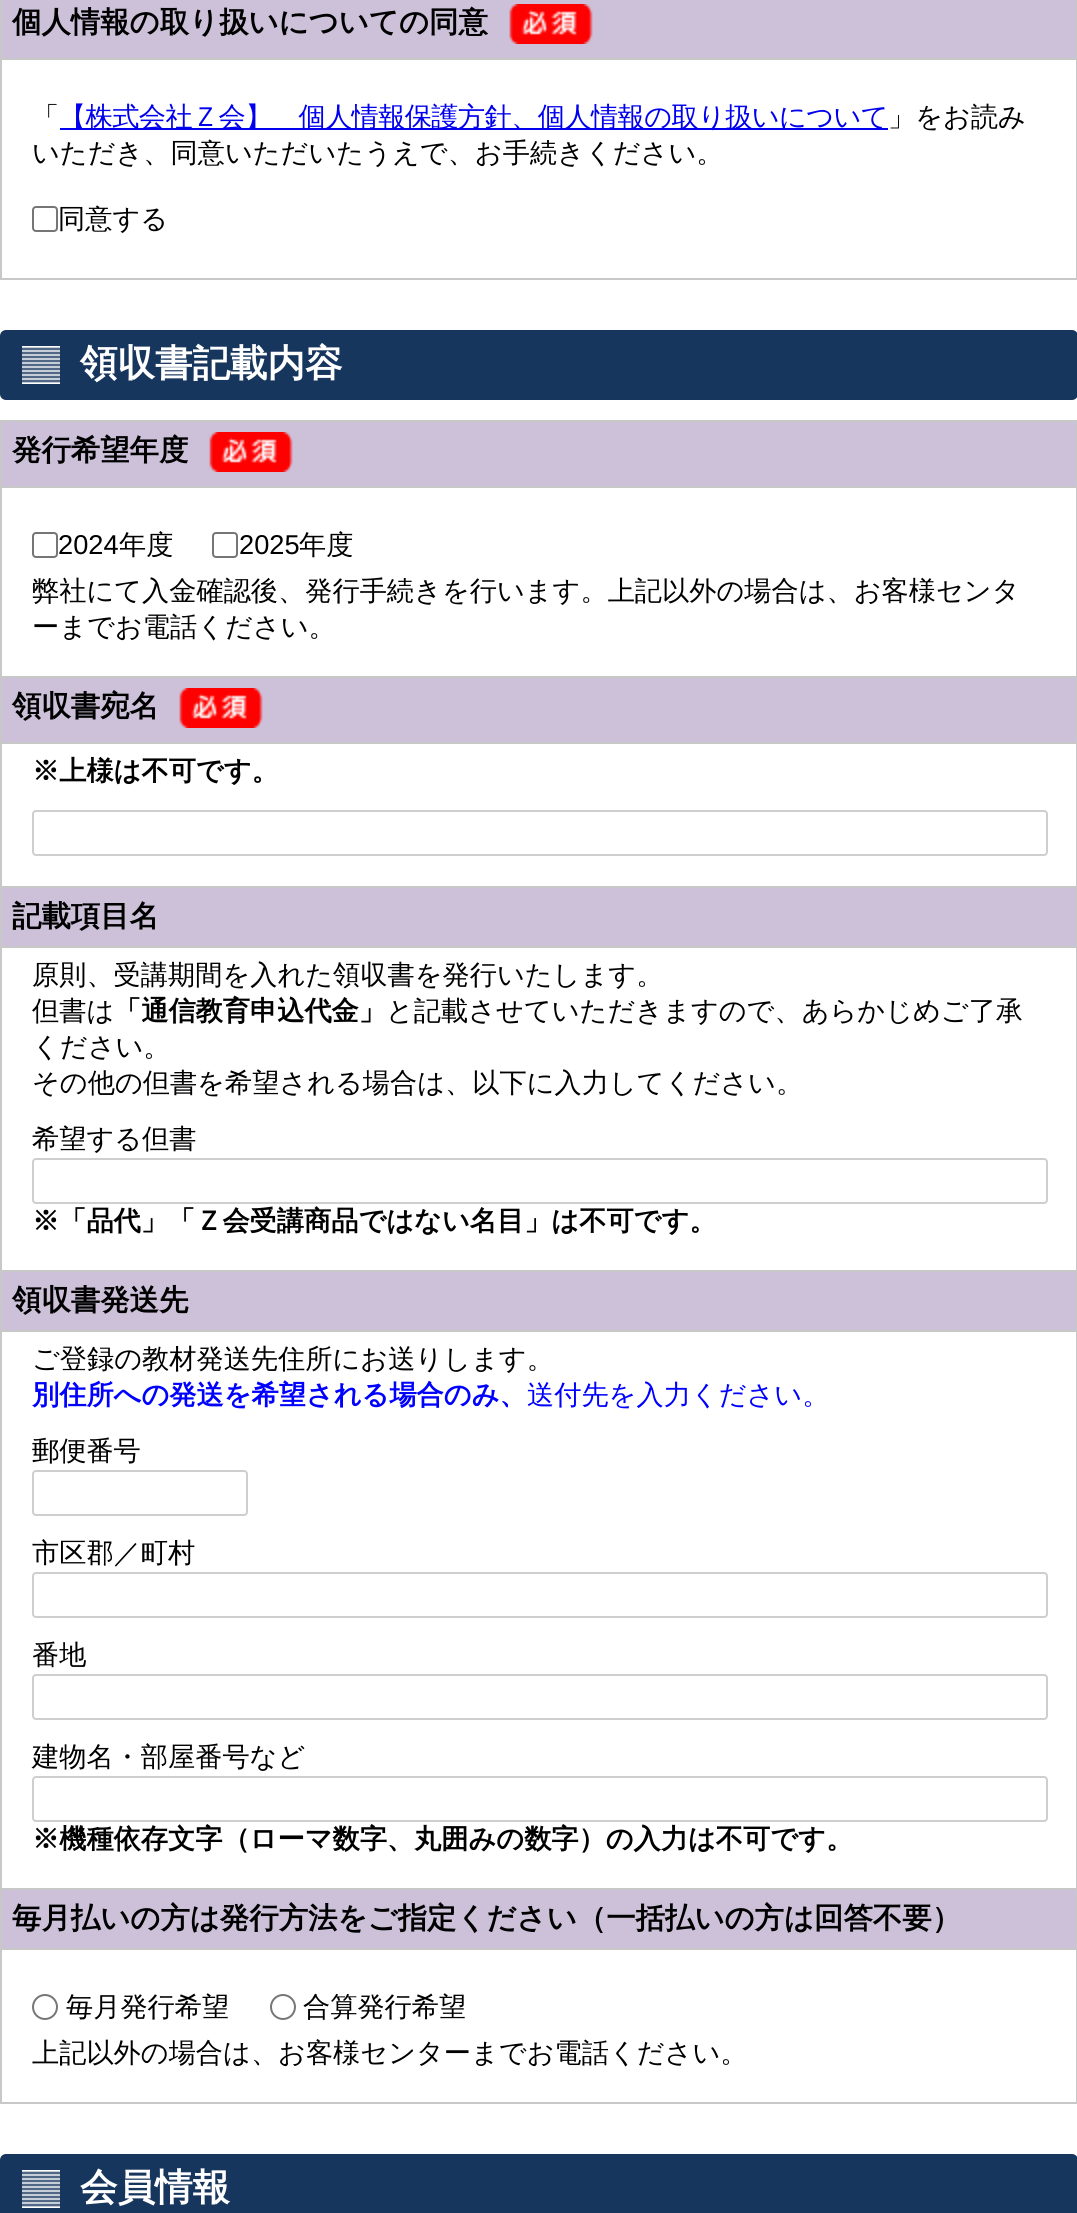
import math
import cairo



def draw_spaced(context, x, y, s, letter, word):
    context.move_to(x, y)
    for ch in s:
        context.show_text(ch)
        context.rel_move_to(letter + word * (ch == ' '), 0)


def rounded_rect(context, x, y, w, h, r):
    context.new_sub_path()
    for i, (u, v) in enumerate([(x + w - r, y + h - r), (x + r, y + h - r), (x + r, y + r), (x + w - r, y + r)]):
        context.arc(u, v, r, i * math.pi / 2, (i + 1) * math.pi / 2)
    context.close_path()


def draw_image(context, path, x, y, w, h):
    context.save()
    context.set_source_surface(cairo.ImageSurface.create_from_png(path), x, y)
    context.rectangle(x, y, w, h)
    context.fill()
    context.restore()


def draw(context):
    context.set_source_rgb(1, 1, 1)
    context.paint()
    context.set_source_rgb(200 / 255, 200 / 255, 200 / 255)
    context.rectangle(1076, 0, 1, 280)
    context.fill()
    context.rectangle(0, 0, 2, 280)
    context.fill()
    context.set_source_rgb(204 / 255, 193 / 255, 217 / 255)
    context.rectangle(2, 0, 1074, 58)
    context.fill()
    context.set_source_rgb(200 / 255, 200 / 255, 200 / 255)
    context.rectangle(2, 58, 1074, 2)
    context.fill()
    draw_image(context, "images/1.png", 509, 4, 84, 40)
    context.rectangle(2, 278, 1074, 2)
    context.fill()
    context.set_source_rgb(0, 0, 238 / 255)
    context.rectangle(60, 128, 828, 2)
    context.fill()
    rounded_rect(context, 33, 207, 24, 24, 3)
    context.set_source_rgb(118 / 255, 118 / 255, 118 / 255)
    context.stroke()
    context.set_source_rgb(23 / 255, 54 / 255, 93 / 255)
    rounded_rect(context, 0, 330, 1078, 70, 6)
    context.fill()
    draw_image(context, "images/2.png", 22, 346, 38, 38)
    context.set_source_rgb(200 / 255, 200 / 255, 200 / 255)
    context.rectangle(0, 420, 1077, 2)
    context.fill()
    context.rectangle(1076, 420, 1, 1684)
    context.fill()
    context.rectangle(0, 420, 2, 1684)
    context.fill()
    context.set_source_rgb(204 / 255, 193 / 255, 217 / 255)
    context.rectangle(2, 422, 1074, 64)
    context.fill()
    context.set_source_rgb(200 / 255, 200 / 255, 200 / 255)
    context.rectangle(2, 486, 1074, 2)
    context.fill()
    draw_image(context, "images/1.png", 209, 432, 84, 40)
    context.rectangle(2, 676, 1074, 2)
    context.fill()
    rounded_rect(context, 33, 533, 24, 24, 3)
    context.set_source_rgb(118 / 255, 118 / 255, 118 / 255)
    context.stroke()
    rounded_rect(context, 213, 533, 24, 24, 3)
    context.stroke()
    context.set_source_rgb(204 / 255, 193 / 255, 217 / 255)
    context.rectangle(2, 678, 1074, 64)
    context.fill()
    context.set_source_rgb(200 / 255, 200 / 255, 200 / 255)
    context.rectangle(2, 742, 1074, 2)
    context.fill()
    draw_image(context, "images/1.png", 179, 688, 84, 40)
    context.rectangle(2, 886, 1074, 2)
    context.fill()
    rounded_rect(context, 33, 811, 1014, 44, 3)
    context.set_source_rgb(206 / 255, 206 / 255, 206 / 255)
    context.stroke()
    context.set_source_rgb(204 / 255, 193 / 255, 217 / 255)
    context.rectangle(2, 888, 1074, 58)
    context.fill()
    context.set_source_rgb(200 / 255, 200 / 255, 200 / 255)
    context.rectangle(2, 946, 1074, 2)
    context.fill()
    context.rectangle(2, 1270, 1074, 2)
    context.fill()
    rounded_rect(context, 33, 1159, 1014, 44, 3)
    context.set_source_rgb(206 / 255, 206 / 255, 206 / 255)
    context.stroke()
    context.set_source_rgb(204 / 255, 193 / 255, 217 / 255)
    context.rectangle(2, 1272, 1074, 58)
    context.fill()
    context.set_source_rgb(200 / 255, 200 / 255, 200 / 255)
    context.rectangle(2, 1330, 1074, 2)
    context.fill()
    context.rectangle(2, 1888, 1074, 2)
    context.fill()
    rounded_rect(context, 33, 1471, 214, 44, 3)
    context.set_source_rgb(206 / 255, 206 / 255, 206 / 255)
    context.stroke()
    rounded_rect(context, 33, 1573, 1014, 44, 3)
    context.stroke()
    rounded_rect(context, 33, 1675, 1014, 44, 3)
    context.stroke()
    rounded_rect(context, 33, 1777, 1014, 44, 3)
    context.stroke()
    context.set_source_rgb(204 / 255, 193 / 255, 217 / 255)
    context.rectangle(2, 1890, 1074, 58)
    context.fill()
    context.set_source_rgb(200 / 255, 200 / 255, 200 / 255)
    context.rectangle(2, 1948, 1074, 2)
    context.fill()
    context.rectangle(2, 2102, 1074, 2)
    context.fill()
    context.arc(45, 2007, 12, 0, 2 * math.pi)
    context.set_source_rgb(118 / 255, 118 / 255, 118 / 255)
    context.stroke()
    context.arc(283, 2007, 12, 0, 2 * math.pi)
    context.stroke()
    context.set_source_rgb(23 / 255, 54 / 255, 93 / 255)
    rounded_rect(context, 0, 2154, 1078, 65, 6)
    context.fill()
    draw_image(context, "images/2.png", 22, 2170, 38, 38)
    context.select_font_face("WenQuanYi Zen Hei", cairo.FontSlant.NORMAL, cairo.FontWeight.BOLD)
    context.set_font_size(29.4)
    context.set_source_rgb(0, 0, 0)
    context.move_to(12, 32)
    context.show_text("個人情報の取り扱いについての同意")
    context.select_font_face("WenQuanYi Zen Hei Medium")
    context.set_font_size(27.2)
    context.move_to(32, 126)
    context.show_text("「")
    context.set_source_rgb(0, 0, 238 / 255)
    draw_spaced(context, 59, 126, "【株式会社Ｚ会】　個人情報保護方針、個人情報の取り扱いについて", -0.6, 0)
    context.set_source_rgb(0, 0, 0)
    context.move_to(888, 126)
    context.show_text("」をお読み")
    context.move_to(32, 162)
    context.show_text("いただき、同意いただいたうえで、お手続きください。")
    context.move_to(58, 228)
    context.show_text("同意する")
    context.select_font_face("WenQuanYi Zen Hei", cairo.FontSlant.NORMAL, cairo.FontWeight.BOLD)
    context.set_font_size(37.5)
    context.set_source_rgb(1, 1, 1)
    context.move_to(80, 376)
    context.show_text("領収書記載内容")
    context.set_font_size(29.4)
    context.set_source_rgb(0, 0, 0)
    context.move_to(12, 460)
    context.show_text("発行希望年度")
    context.select_font_face("Liberation Sans")
    context.set_font_size(27.2)
    context.move_to(58, 554)
    context.show_text("2024")
    context.select_font_face("WenQuanYi Zen Hei Medium")
    context.move_to(119, 554)
    context.show_text("年度")
    context.select_font_face("Liberation Sans")
    context.move_to(239, 554)
    context.show_text("2025")
    context.select_font_face("WenQuanYi Zen Hei Medium")
    context.move_to(299, 554)
    context.show_text("年度")
    context.move_to(32, 600)
    context.show_text("弊社にて入金確認後、発行手続きを行います。上記以外の場合は、お客様センタ")
    context.move_to(32, 636)
    context.show_text("ーまでお電話ください。")
    context.select_font_face("WenQuanYi Zen Hei", cairo.FontSlant.NORMAL, cairo.FontWeight.BOLD)
    context.set_font_size(29.4)
    context.move_to(12, 716)
    context.show_text("領収書宛名")
    context.set_font_size(27.2)
    context.move_to(32, 780)
    context.show_text("※上様は不可です。")
    context.set_font_size(29.4)
    context.move_to(12, 926)
    context.show_text("記載項目名")
    context.select_font_face("WenQuanYi Zen Hei Medium")
    context.set_font_size(27.2)
    context.move_to(32, 984)
    context.show_text("原則、受講期間を入れた領収書を発行いたします。")
    context.move_to(32, 1020)
    context.show_text("但書は")
    context.select_font_face("WenQuanYi Zen Hei", cairo.FontSlant.NORMAL, cairo.FontWeight.BOLD)
    context.move_to(114, 1020)
    context.show_text("「通信教育申込代金」")
    context.select_font_face("WenQuanYi Zen Hei Medium")
    context.move_to(386, 1020)
    context.show_text("と記載させていただきますので、あらかじめご了承")
    context.move_to(32, 1056)
    context.show_text("ください。")
    context.move_to(32, 1092)
    context.show_text("その他の但書を希望される場合は、以下に入力してください。")
    context.move_to(32, 1148)
    context.show_text("希望する但書")
    context.select_font_face("WenQuanYi Zen Hei", cairo.FontSlant.NORMAL, cairo.FontWeight.BOLD)
    context.move_to(32, 1230)
    context.show_text("※「品代」「Ｚ会受講商品ではない名目」は不可です。")
    context.set_font_size(29.4)
    context.move_to(12, 1310)
    context.show_text("領収書発送先")
    context.select_font_face("WenQuanYi Zen Hei Medium")
    context.set_font_size(27.2)
    context.move_to(32, 1368)
    context.show_text("ご登録の教材発送先住所にお送りします。")
    context.select_font_face("WenQuanYi Zen Hei", cairo.FontSlant.NORMAL, cairo.FontWeight.BOLD)
    context.set_source_rgb(0, 0, 1)
    context.move_to(32, 1404)
    context.show_text("別住所への発送を希望される場合のみ、")
    context.select_font_face("WenQuanYi Zen Hei Medium")
    context.move_to(527, 1404)
    context.show_text("送付先を入力ください。")
    context.set_source_rgb(0, 0, 0)
    context.move_to(32, 1460)
    context.show_text("郵便番号")
    context.move_to(32, 1562)
    context.show_text("市区郡／町村")
    context.move_to(32, 1664)
    context.show_text("番地")
    context.move_to(32, 1766)
    context.show_text("建物名・部屋番号など")
    context.select_font_face("WenQuanYi Zen Hei", cairo.FontSlant.NORMAL, cairo.FontWeight.BOLD)
    context.move_to(32, 1848)
    context.show_text("※機種依存文字（ローマ数字、丸囲みの数字）の入力は不可です。")
    context.set_font_size(29.4)
    context.move_to(12, 1928)
    context.show_text("毎月払いの方は発行方法をご指定ください（一括払いの方は回答不要）")
    context.select_font_face("WenQuanYi Zen Hei Medium")
    context.set_font_size(27.2)
    context.move_to(66, 2016)
    context.show_text("毎月発行希望")
    context.move_to(303, 2016)
    context.show_text("合算発行希望")
    context.move_to(32, 2062)
    context.show_text("上記以外の場合は、お客様センターまでお電話ください。")
    context.select_font_face("WenQuanYi Zen Hei", cairo.FontSlant.NORMAL, cairo.FontWeight.BOLD)
    context.set_font_size(37.5)
    context.set_source_rgb(1, 1, 1)
    context.move_to(80, 2200)
    context.show_text("会員情報")


surface = cairo.ImageSurface(cairo.Format.RGB24, 1077, 2213)
context = cairo.Context(surface)
options = cairo.FontOptions()
options.set_hint_metrics(cairo.HintMetrics.OFF)
options.set_hint_style(cairo.HintStyle.NONE)
context.set_font_options(options)
context.set_miter_limit(4)
draw(context)
surface.write_to_png("out.png")
